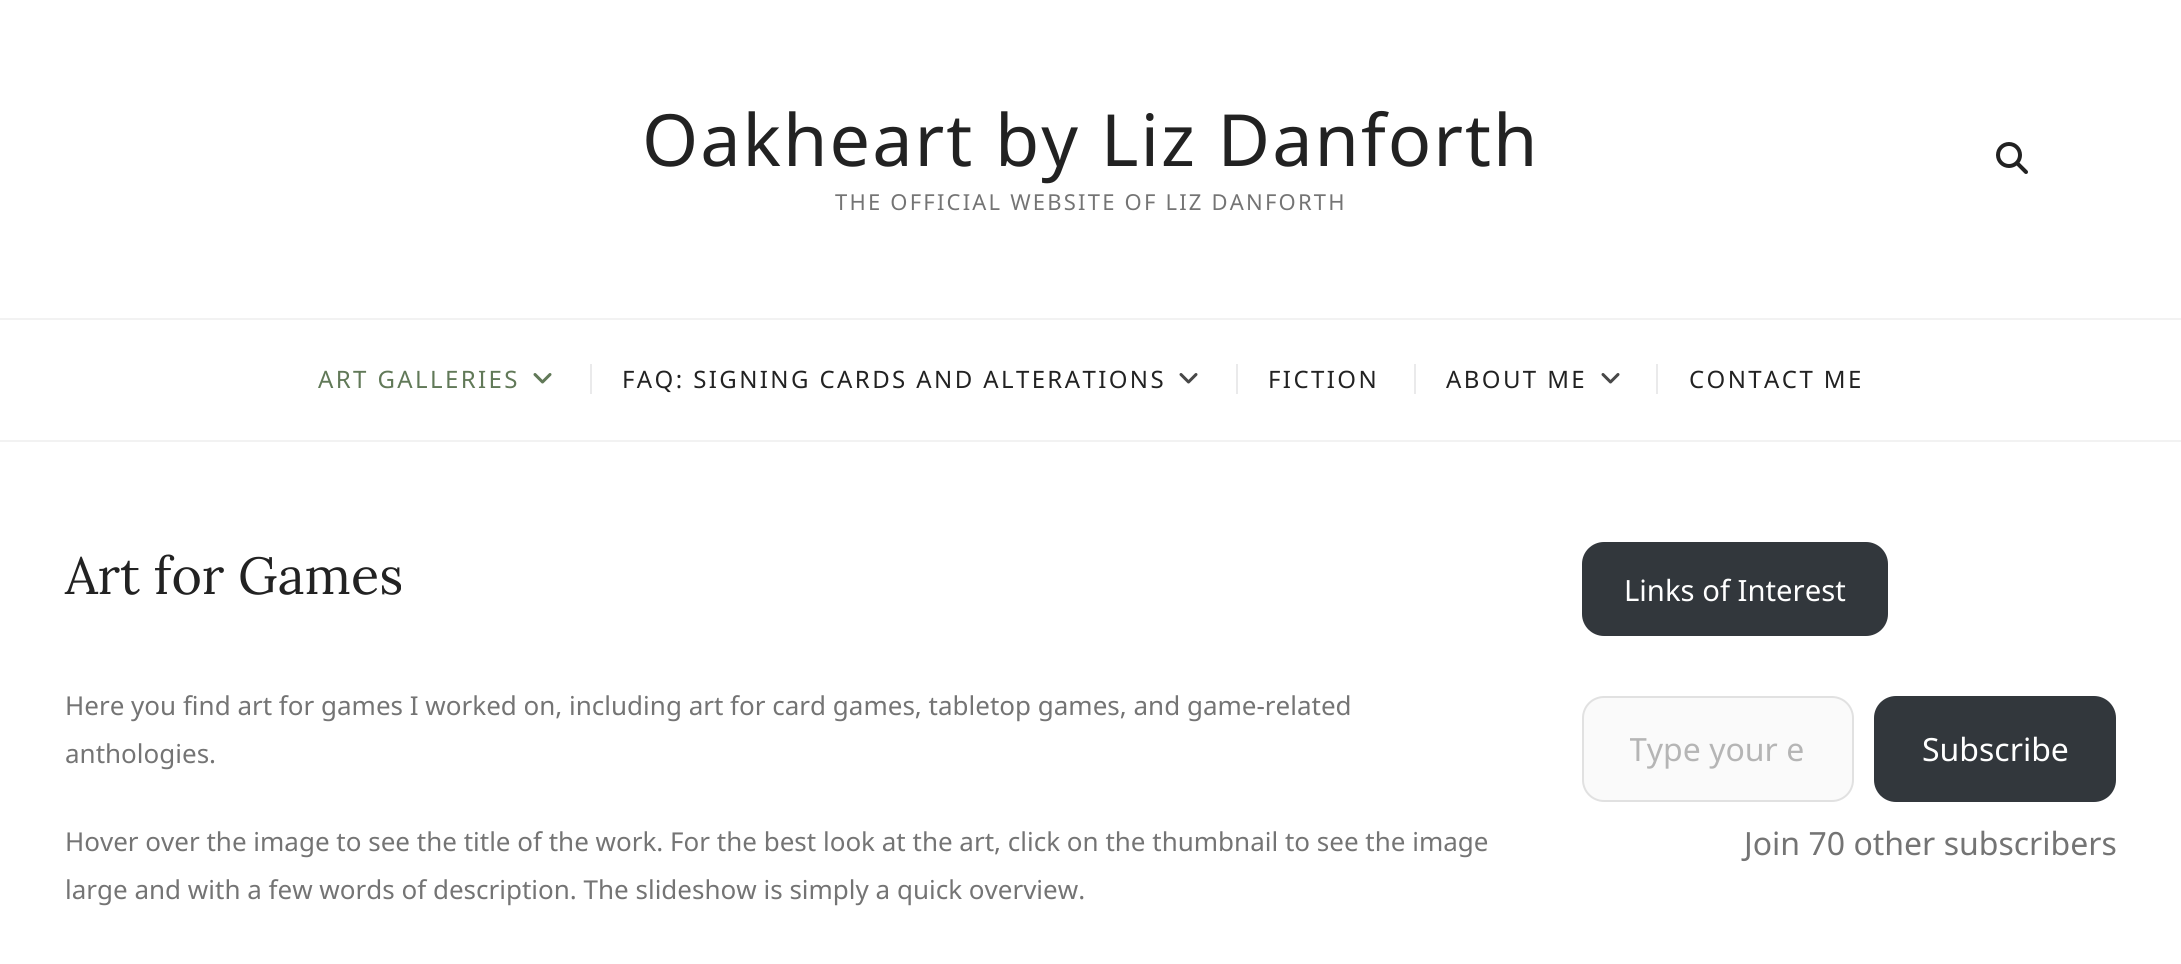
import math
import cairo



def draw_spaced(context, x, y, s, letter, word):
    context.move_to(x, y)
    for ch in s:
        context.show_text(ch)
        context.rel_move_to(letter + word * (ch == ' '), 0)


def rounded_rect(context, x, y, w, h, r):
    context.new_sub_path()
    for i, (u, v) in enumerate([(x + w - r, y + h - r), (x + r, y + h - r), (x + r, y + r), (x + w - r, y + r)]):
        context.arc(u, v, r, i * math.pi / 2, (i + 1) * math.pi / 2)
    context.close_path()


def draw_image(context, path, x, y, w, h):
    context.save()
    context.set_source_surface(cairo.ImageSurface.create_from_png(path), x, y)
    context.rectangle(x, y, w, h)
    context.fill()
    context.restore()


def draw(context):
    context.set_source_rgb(1, 1, 1)
    context.paint()
    draw_image(context, "images/1.png", 1996, 142, 32, 32)
    context.set_source_rgb(242 / 255, 242 / 255, 242 / 255)
    context.rectangle(0, 318, 2181, 2)
    context.fill()
    context.rectangle(0, 440, 2181, 2)
    context.fill()
    draw_image(context, "images/2.png", 533, 373, 19, 11)
    context.set_source_rgb(234 / 255, 234 / 255, 235 / 255)
    context.rectangle(590, 364, 2, 30)
    context.fill()
    draw_image(context, "images/3.png", 1179, 373, 19, 11)
    context.rectangle(1236, 364, 2, 30)
    context.fill()
    context.rectangle(1414, 364, 2, 30)
    context.fill()
    draw_image(context, "images/3.png", 1601, 373, 19, 11)
    context.rectangle(1656, 364, 2, 30)
    context.fill()
    context.set_source_rgb(50 / 255, 55 / 255, 60 / 255)
    rounded_rect(context, 1582, 542, 306, 94, 22)
    context.fill()
    context.set_source_rgb(250 / 255, 250 / 255, 250 / 255)
    rounded_rect(context, 1582, 696, 272, 106, 22)
    context.fill()
    rounded_rect(context, 1583, 697, 270, 104, 21)
    context.set_source_rgba(0, 0, 0, 0.1)
    context.stroke()
    context.set_source_rgb(50 / 255, 55 / 255, 60 / 255)
    rounded_rect(context, 1874, 696, 242, 106, 22)
    context.fill()
    context.select_font_face("Noto Sans")
    context.set_font_size(72)
    context.set_source_rgb(34 / 255, 34 / 255, 34 / 255)
    draw_spaced(context, 642, 166, "Oakheart by Liz Danforth", 2, 0)
    context.set_font_size(22)
    context.set_source_rgb(116 / 255, 116 / 255, 116 / 255)
    draw_spaced(context, 835, 210, "THE OFFICIAL WEBSITE OF LIZ DANFORTH", 2.2, 0)
    context.set_font_size(24)
    context.set_source_rgb(97 / 255, 121 / 255, 88 / 255)
    draw_spaced(context, 318, 388, "ART GALLERIES", 2.4, 0)
    context.set_source_rgb(34 / 255, 34 / 255, 34 / 255)
    draw_spaced(context, 622, 388, "FAQ: SIGNING CARDS AND ALTERATIONS", 2.4, 0)
    draw_spaced(context, 1268, 388, "FICTION", 2.4, 0)
    draw_spaced(context, 1446, 388, "ABOUT ME", 2.4, 0)
    draw_spaced(context, 1689, 388, "CONTACT ME", 2.4, 0)
    context.select_font_face("Lora")
    context.set_font_size(52)
    context.move_to(65, 594)
    context.show_text("Art for Games")
    context.select_font_face("Noto Sans")
    context.set_font_size(26)
    context.set_source_rgb(116 / 255, 116 / 255, 116 / 255)
    context.move_to(65, 715)
    context.show_text("Here you find art for games I worked on, including art for card games, tabletop games, and game-related")
    context.move_to(65, 763)
    context.show_text("anthologies.")
    context.move_to(65, 851)
    context.show_text("Hover over the image to see the title of the work. For the best look at the art, click on the thumbnail to see the image")
    context.move_to(65, 899)
    context.show_text("large and with a few words of description. The slideshow is simply a quick overview.")
    context.set_font_size(29.25)
    context.set_source_rgb(1, 1, 1)
    context.move_to(1624, 601)
    context.show_text("Links of Interest")
    context.save()
    context.rectangle(1630, 726, 176, 44)
    context.clip()
    context.set_font_size(32)
    context.set_source_rgb(181 / 255, 181 / 255, 181 / 255)
    context.move_to(1629, 761)
    context.show_text("Type your e")
    context.restore()
    context.set_font_size(32)
    context.move_to(1922, 761)
    context.show_text("Subscribe")
    context.set_source_rgb(116 / 255, 116 / 255, 116 / 255)
    context.move_to(1744, 855)
    context.show_text("Join 70 other subscribers")


surface = cairo.ImageSurface(cairo.Format.RGB24, 2181, 964)
context = cairo.Context(surface)
options = cairo.FontOptions()
options.set_hint_metrics(cairo.HintMetrics.OFF)
options.set_hint_style(cairo.HintStyle.NONE)
context.set_font_options(options)
context.set_miter_limit(4)
draw(context)
surface.write_to_png("out.png")
